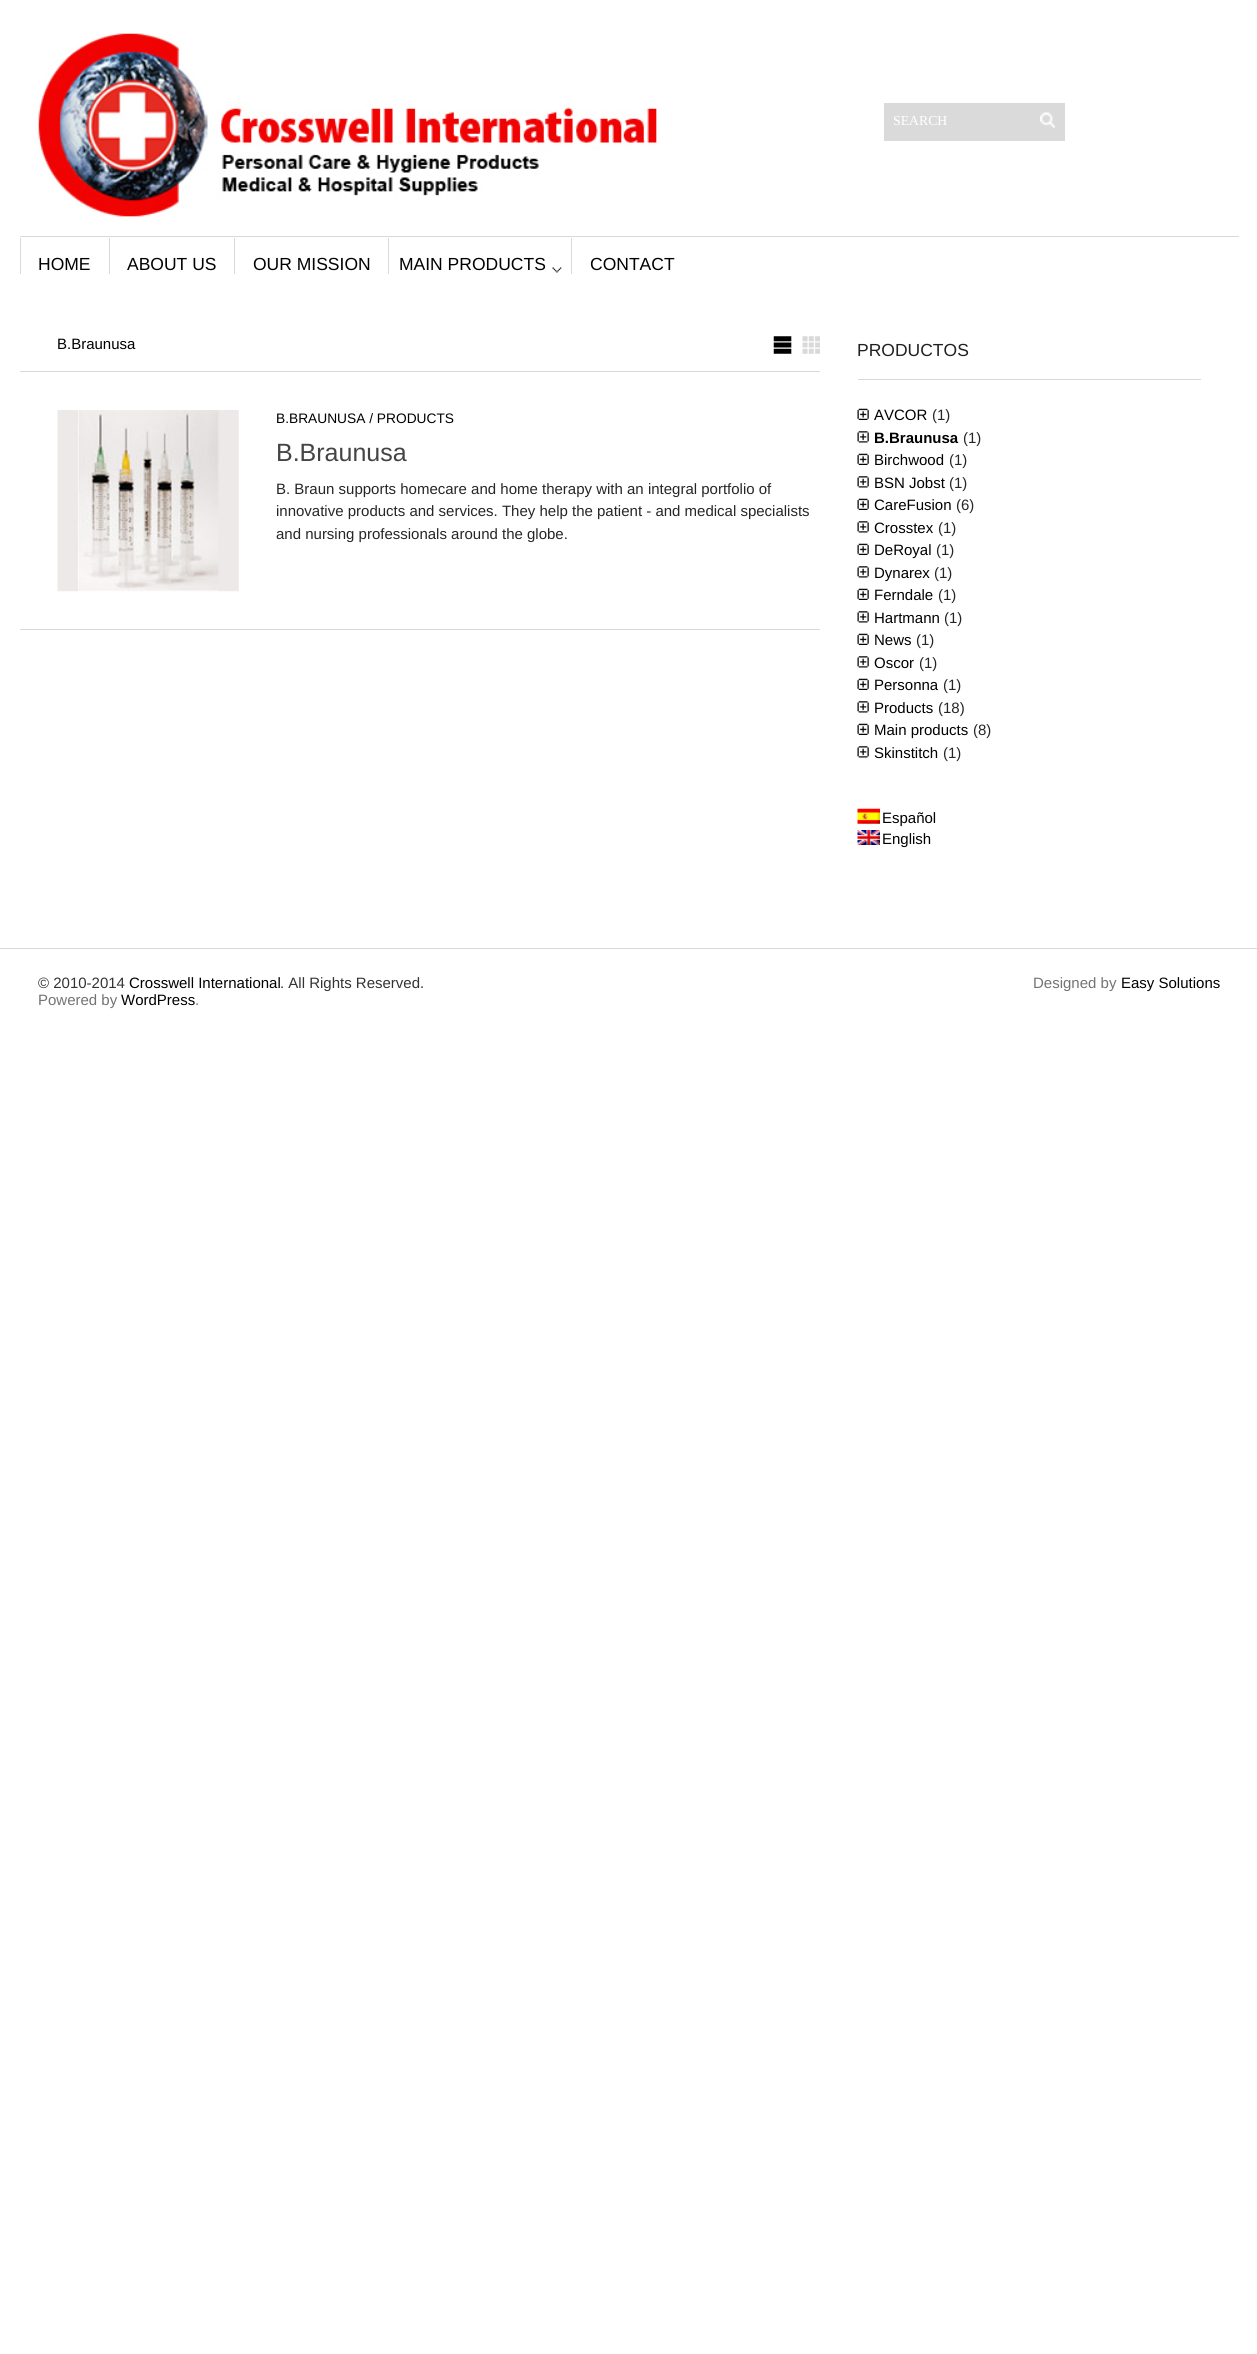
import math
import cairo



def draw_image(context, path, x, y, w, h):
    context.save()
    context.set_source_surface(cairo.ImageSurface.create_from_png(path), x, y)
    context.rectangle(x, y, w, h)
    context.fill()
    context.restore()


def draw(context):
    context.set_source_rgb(1, 1, 1)
    context.paint()
    draw_image(context, "images/1.png", 38, 33, 619, 184)
    context.set_source_rgb(218 / 255, 218 / 255, 218 / 255)
    context.rectangle(884, 103, 181, 38)
    context.fill()
    draw_image(context, "images/2.png", 1040, 112, 15, 16)
    context.set_source_rgb(217 / 255, 217 / 255, 217 / 255)
    context.rectangle(20, 236, 1219, 1)
    context.fill()
    context.rectangle(20, 238, 1, 36)
    context.fill()
    context.rectangle(109, 238, 1, 36)
    context.fill()
    context.rectangle(234, 238, 1, 36)
    context.fill()
    context.rectangle(388, 238, 1, 36)
    context.fill()
    draw_image(context, "images/3.png", 552, 267, 10, 6)
    context.rectangle(571, 238, 1, 36)
    context.fill()
    context.rectangle(20, 371, 800, 1)
    context.fill()
    draw_image(context, "images/4.png", 773, 336, 47, 18)
    context.rectangle(20, 629, 800, 1)
    context.fill()
    draw_image(context, "images/5.png", 57, 410, 182, 182)
    context.rectangle(858, 379, 343, 1)
    context.fill()
    draw_image(context, "images/6.png", 857, 408, 12, 12)
    draw_image(context, "images/7.png", 857, 431, 12, 12)
    draw_image(context, "images/6.png", 857, 453, 12, 12)
    draw_image(context, "images/7.png", 857, 476, 12, 12)
    draw_image(context, "images/6.png", 857, 498, 12, 12)
    draw_image(context, "images/7.png", 857, 521, 12, 12)
    draw_image(context, "images/6.png", 857, 543, 12, 12)
    draw_image(context, "images/7.png", 857, 566, 12, 12)
    draw_image(context, "images/6.png", 857, 588, 12, 12)
    draw_image(context, "images/7.png", 857, 611, 12, 12)
    draw_image(context, "images/6.png", 857, 633, 12, 12)
    draw_image(context, "images/7.png", 857, 656, 12, 12)
    draw_image(context, "images/6.png", 857, 678, 12, 12)
    draw_image(context, "images/7.png", 857, 701, 12, 12)
    draw_image(context, "images/6.png", 857, 723, 12, 12)
    draw_image(context, "images/7.png", 857, 746, 12, 12)
    draw_image(context, "images/8.png", 857, 808, 23, 16)
    draw_image(context, "images/9.png", 857, 830, 23, 15)
    context.rectangle(0, 948, 1257, 1)
    context.fill()
    context.select_font_face("Liberation Serif")
    context.set_font_size(13.75)
    context.set_source_rgb(1, 1, 1)
    context.move_to(893, 125)
    context.show_text("SEARCH")
    context.select_font_face("Liberation Sans")
    context.set_font_size(17.5)
    context.set_source_rgb(0, 0, 0)
    context.move_to(38, 270)
    context.show_text("HOME")
    context.move_to(127, 270)
    context.show_text("ABOUT US")
    context.move_to(253, 270)
    context.show_text("OUR MISSION")
    context.move_to(399, 270)
    context.show_text("MAIN PRODUCTS")
    context.move_to(590, 270)
    context.show_text("CONTACT")
    context.set_font_size(15)
    context.move_to(57, 349)
    context.show_text("B.Braunusa")
    context.set_font_size(13.75)
    context.move_to(276, 423)
    context.show_text("B.BRAUNUSA / PRODUCTS")
    context.set_font_size(25)
    context.set_source_rgb(68 / 255, 68 / 255, 68 / 255)
    context.move_to(276, 461)
    context.show_text("B.Braunusa")
    context.set_font_size(15)
    context.set_source_rgb(38 / 255, 38 / 255, 38 / 255)
    context.move_to(276, 494)
    context.show_text("B. Braun supports homecare and home therapy with an integral portfolio of")
    context.move_to(276, 516)
    context.show_text("innovative products and services. They help the patient - and medical specialists")
    context.move_to(276, 539)
    context.show_text("and nursing professionals around the globe.")
    context.set_font_size(17.5)
    context.set_source_rgb(31 / 255, 33 / 255, 34 / 255)
    context.move_to(857, 356)
    context.show_text("PRODUCTOS")
    context.set_font_size(15)
    context.set_source_rgb(0, 0, 0)
    context.move_to(874, 420)
    context.show_text("AVCOR")
    context.set_source_rgb(38 / 255, 38 / 255, 38 / 255)
    context.move_to(932, 420)
    context.show_text("(1)")
    context.select_font_face("Liberation Sans", cairo.FontSlant.NORMAL, cairo.FontWeight.BOLD)
    context.set_source_rgb(0, 0, 0)
    context.move_to(874, 443)
    context.show_text("B.Braunusa")
    context.select_font_face("Liberation Sans")
    context.set_source_rgb(38 / 255, 38 / 255, 38 / 255)
    context.move_to(963, 443)
    context.show_text("(1)")
    context.set_source_rgb(0, 0, 0)
    context.move_to(874, 465)
    context.show_text("Birchwood")
    context.set_source_rgb(38 / 255, 38 / 255, 38 / 255)
    context.move_to(949, 465)
    context.show_text("(1)")
    context.set_source_rgb(0, 0, 0)
    context.move_to(874, 488)
    context.show_text("BSN Jobst")
    context.set_source_rgb(38 / 255, 38 / 255, 38 / 255)
    context.move_to(949, 488)
    context.show_text("(1)")
    context.set_source_rgb(0, 0, 0)
    context.move_to(874, 510)
    context.show_text("CareFusion")
    context.set_source_rgb(38 / 255, 38 / 255, 38 / 255)
    context.move_to(956, 510)
    context.show_text("(6)")
    context.set_source_rgb(0, 0, 0)
    context.move_to(874, 533)
    context.show_text("Crosstex")
    context.set_source_rgb(38 / 255, 38 / 255, 38 / 255)
    context.move_to(938, 533)
    context.show_text("(1)")
    context.set_source_rgb(0, 0, 0)
    context.move_to(874, 555)
    context.show_text("DeRoyal")
    context.set_source_rgb(38 / 255, 38 / 255, 38 / 255)
    context.move_to(936, 555)
    context.show_text("(1)")
    context.set_source_rgb(0, 0, 0)
    context.move_to(874, 578)
    context.show_text("Dynarex")
    context.set_source_rgb(38 / 255, 38 / 255, 38 / 255)
    context.move_to(934, 578)
    context.show_text("(1)")
    context.set_source_rgb(0, 0, 0)
    context.move_to(874, 600)
    context.show_text("Ferndale")
    context.set_source_rgb(38 / 255, 38 / 255, 38 / 255)
    context.move_to(938, 600)
    context.show_text("(1)")
    context.set_source_rgb(0, 0, 0)
    context.move_to(874, 623)
    context.show_text("Hartmann")
    context.set_source_rgb(38 / 255, 38 / 255, 38 / 255)
    context.move_to(944, 623)
    context.show_text("(1)")
    context.set_source_rgb(0, 0, 0)
    context.move_to(874, 645)
    context.show_text("News")
    context.set_source_rgb(38 / 255, 38 / 255, 38 / 255)
    context.move_to(916, 645)
    context.show_text("(1)")
    context.set_source_rgb(0, 0, 0)
    context.move_to(874, 668)
    context.show_text("Oscor")
    context.set_source_rgb(38 / 255, 38 / 255, 38 / 255)
    context.move_to(919, 668)
    context.show_text("(1)")
    context.set_source_rgb(0, 0, 0)
    context.move_to(874, 690)
    context.show_text("Personna")
    context.set_source_rgb(38 / 255, 38 / 255, 38 / 255)
    context.move_to(943, 690)
    context.show_text("(1)")
    context.set_source_rgb(0, 0, 0)
    context.move_to(874, 713)
    context.show_text("Products")
    context.set_source_rgb(38 / 255, 38 / 255, 38 / 255)
    context.move_to(938, 713)
    context.show_text("(18)")
    context.set_source_rgb(0, 0, 0)
    context.move_to(874, 735)
    context.show_text("Main products")
    context.set_source_rgb(38 / 255, 38 / 255, 38 / 255)
    context.move_to(973, 735)
    context.show_text("(8)")
    context.set_source_rgb(0, 0, 0)
    context.move_to(874, 758)
    context.show_text("Skinstitch")
    context.set_source_rgb(38 / 255, 38 / 255, 38 / 255)
    context.move_to(943, 758)
    context.show_text("(1)")
    context.set_source_rgb(0, 0, 0)
    context.move_to(882, 823)
    context.show_text("Español")
    context.move_to(882, 844)
    context.show_text("English")
    context.set_source_rgb(51 / 255, 51 / 255, 51 / 255)
    context.move_to(38, 988)
    context.show_text("© 2010-2014")
    context.set_source_rgb(0, 0, 0)
    context.move_to(129, 988)
    context.show_text("Crosswell International")
    context.set_source_rgb(51 / 255, 51 / 255, 51 / 255)
    context.move_to(280, 988)
    context.show_text(". All Rights Reserved.")
    context.set_source_rgb(115 / 255, 115 / 255, 115 / 255)
    context.move_to(38, 1005)
    context.show_text("Powered by")
    context.set_source_rgb(0, 0, 0)
    context.move_to(121, 1005)
    context.show_text("WordPress")
    context.set_source_rgb(115 / 255, 115 / 255, 115 / 255)
    context.move_to(195, 1005)
    context.show_text(".")
    context.move_to(1033, 988)
    context.show_text("Designed by")
    context.set_source_rgb(0, 0, 0)
    context.move_to(1121, 988)
    context.show_text("Easy Solutions")


surface = cairo.ImageSurface(cairo.Format.RGB24, 1257, 2354)
context = cairo.Context(surface)
options = cairo.FontOptions()
options.set_hint_metrics(cairo.HintMetrics.OFF)
options.set_hint_style(cairo.HintStyle.NONE)
context.set_font_options(options)
context.set_miter_limit(4)
draw(context)
surface.write_to_png("out.png")
